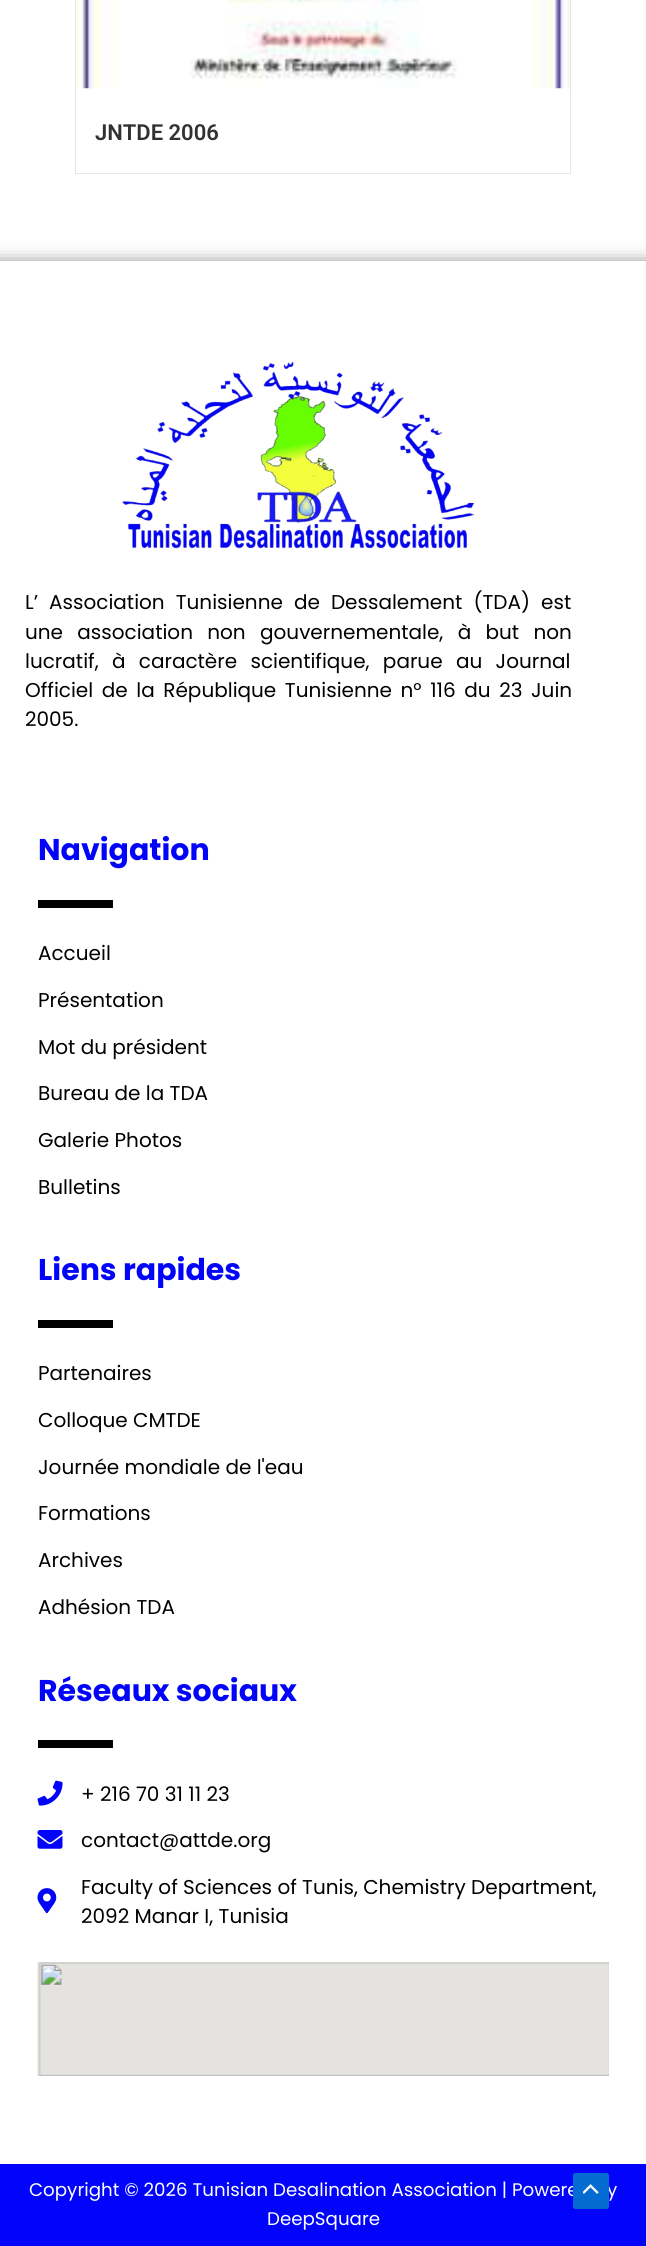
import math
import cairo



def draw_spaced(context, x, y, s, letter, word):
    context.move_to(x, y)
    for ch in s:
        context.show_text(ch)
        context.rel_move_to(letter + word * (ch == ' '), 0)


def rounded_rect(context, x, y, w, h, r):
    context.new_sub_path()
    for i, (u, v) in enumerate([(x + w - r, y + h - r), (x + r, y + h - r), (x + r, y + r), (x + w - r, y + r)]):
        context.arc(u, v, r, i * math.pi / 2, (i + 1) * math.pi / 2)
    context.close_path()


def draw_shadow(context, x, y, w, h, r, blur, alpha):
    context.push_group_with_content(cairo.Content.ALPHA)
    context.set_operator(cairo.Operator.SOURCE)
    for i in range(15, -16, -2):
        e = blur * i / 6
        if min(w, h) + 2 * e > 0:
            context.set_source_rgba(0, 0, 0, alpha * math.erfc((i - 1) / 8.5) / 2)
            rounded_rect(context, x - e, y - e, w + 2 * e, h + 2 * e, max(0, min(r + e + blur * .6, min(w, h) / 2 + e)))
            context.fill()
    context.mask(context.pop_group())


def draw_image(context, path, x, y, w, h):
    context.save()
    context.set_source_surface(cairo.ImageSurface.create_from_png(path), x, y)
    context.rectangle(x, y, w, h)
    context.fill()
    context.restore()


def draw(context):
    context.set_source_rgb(1, 1, 1)
    context.paint()
    context.rectangle(75.5, -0.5, 495, 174)
    context.set_source_rgb(230 / 255, 230 / 255, 230 / 255)
    context.set_line_width(1)
    context.stroke()
    draw_image(context, "images/1.png", 76, 0, 494, 89)
    context.save()
    context.set_fill_rule(cairo.FillRule.EVEN_ODD)
    context.new_path()
    context.move_to(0, 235)
    context.line_to(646, 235)
    context.line_to(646, 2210)
    context.line_to(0, 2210)
    context.close_path()
    context.move_to(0, 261)
    context.line_to(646, 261)
    context.line_to(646, 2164)
    context.line_to(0, 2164)
    context.close_path()
    context.clip()
    context.set_source_rgb(0, 0, 0)
    draw_shadow(context, -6, 265, 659, 1915, 0, 9.5, 0.62)
    context.restore()
    draw_image(context, "images/2.png", 122, 361, 353, 188)
    context.set_source_rgb(0, 0, 0)
    context.rectangle(38, 900, 75, 8)
    context.fill()
    context.rectangle(38, 1320, 75, 8)
    context.fill()
    context.rectangle(38, 1740, 75, 8)
    context.fill()
    draw_image(context, "images/3.png", 37, 1780, 26, 26)
    draw_image(context, "images/4.png", 37, 1830, 26, 19)
    draw_image(context, "images/5.png", 37, 1888, 20, 26)
    draw_image(context, "images/6.png", 37, 1962, 572, 114)
    context.set_source_rgb(1 / 255, 3 / 255, 250 / 255)
    context.rectangle(0, 2164, 646, 82)
    context.fill()
    context.select_font_face("Roboto SemiBold")
    context.set_font_size(22)
    context.set_source_rgb(48 / 255, 49 / 255, 51 / 255)
    context.move_to(95, 140)
    context.show_text("JNTDE 2006")
    context.select_font_face("Poppins")
    context.set_font_size(20)
    context.set_source_rgb(0, 0, 0)
    draw_spaced(context, 25, 609, "L’ Association Tunisienne de Dessalement (TDA) est", 0, 5.75)
    draw_spaced(context, 25, 639, "une association non gouvernementale, à but non", 0, 9)
    draw_spaced(context, 25, 668, "lucratif, à caractère scientifique, parue au Journal", 0, 8)
    draw_spaced(context, 25, 697, "Officiel de la République Tunisienne n° 116 du 23 Juin", 0, 3.25)
    context.move_to(25, 726)
    context.show_text("2005.")
    context.select_font_face("Poppins", cairo.FontSlant.NORMAL, cairo.FontWeight.BOLD)
    context.set_font_size(30)
    context.set_source_rgb(1 / 255, 3 / 255, 250 / 255)
    context.move_to(38, 860)
    context.show_text("Navigation")
    context.select_font_face("Poppins")
    context.set_font_size(20)
    context.set_source_rgb(0, 0, 0)
    context.move_to(38, 960)
    context.show_text("Accueil")
    context.move_to(38, 1007)
    context.show_text("Présentation")
    context.move_to(38, 1054)
    context.show_text("Mot du président")
    context.move_to(38, 1100)
    context.show_text("Bureau de la TDA")
    context.move_to(38, 1147)
    context.show_text("Galerie Photos")
    context.move_to(38, 1194)
    context.show_text("Bulletins")
    context.select_font_face("Poppins", cairo.FontSlant.NORMAL, cairo.FontWeight.BOLD)
    context.set_font_size(30)
    context.set_source_rgb(1 / 255, 3 / 255, 250 / 255)
    context.move_to(38, 1280)
    context.show_text("Liens rapides")
    context.select_font_face("Poppins")
    context.set_font_size(20)
    context.set_source_rgb(0, 0, 0)
    context.move_to(38, 1380)
    context.show_text("Partenaires")
    context.move_to(38, 1427)
    context.show_text("Colloque CMTDE")
    context.move_to(38, 1474)
    context.show_text("Journée mondiale de l'eau")
    context.move_to(38, 1520)
    context.show_text("Formations")
    context.move_to(38, 1567)
    context.show_text("Archives")
    context.move_to(38, 1614)
    context.show_text("Adhésion TDA")
    context.select_font_face("Poppins", cairo.FontSlant.NORMAL, cairo.FontWeight.BOLD)
    context.set_font_size(30)
    context.set_source_rgb(1 / 255, 3 / 255, 250 / 255)
    context.move_to(38, 1701)
    context.show_text("Réseaux sociaux")
    context.select_font_face("Poppins")
    context.set_font_size(20)
    context.set_source_rgb(0, 0, 0)
    context.move_to(81, 1801)
    context.show_text("+ 216 70 31 11 23")
    context.move_to(81, 1847)
    context.show_text("contact@attde.org")
    context.move_to(81, 1894)
    context.show_text("Faculty of Sciences of Tunis, Chemistry Department,")
    context.move_to(81, 1923)
    context.show_text("2092 Manar I, Tunisia")
    context.set_font_size(18.25)
    context.set_source_rgb(1, 1, 1)
    context.move_to(29, 2196)
    context.show_text("Copyright © 2026 Tunisian Desalination Association | Powere")
    context.move_to(607, 2196)
    context.show_text("y")
    context.move_to(267, 2225)
    context.show_text("DeepSquare")
    context.set_source_rgb(4 / 255, 107 / 255, 210 / 255)
    rounded_rect(context, 573, 2173, 36, 36, 2.5)
    context.fill()
    draw_image(context, "images/7.png", 583, 2184, 16, 10)


surface = cairo.ImageSurface(cairo.Format.RGB24, 646, 2246)
context = cairo.Context(surface)
options = cairo.FontOptions()
options.set_hint_metrics(cairo.HintMetrics.OFF)
options.set_hint_style(cairo.HintStyle.NONE)
context.set_font_options(options)
context.set_miter_limit(4)
draw(context)
surface.write_to_png("out.png")
